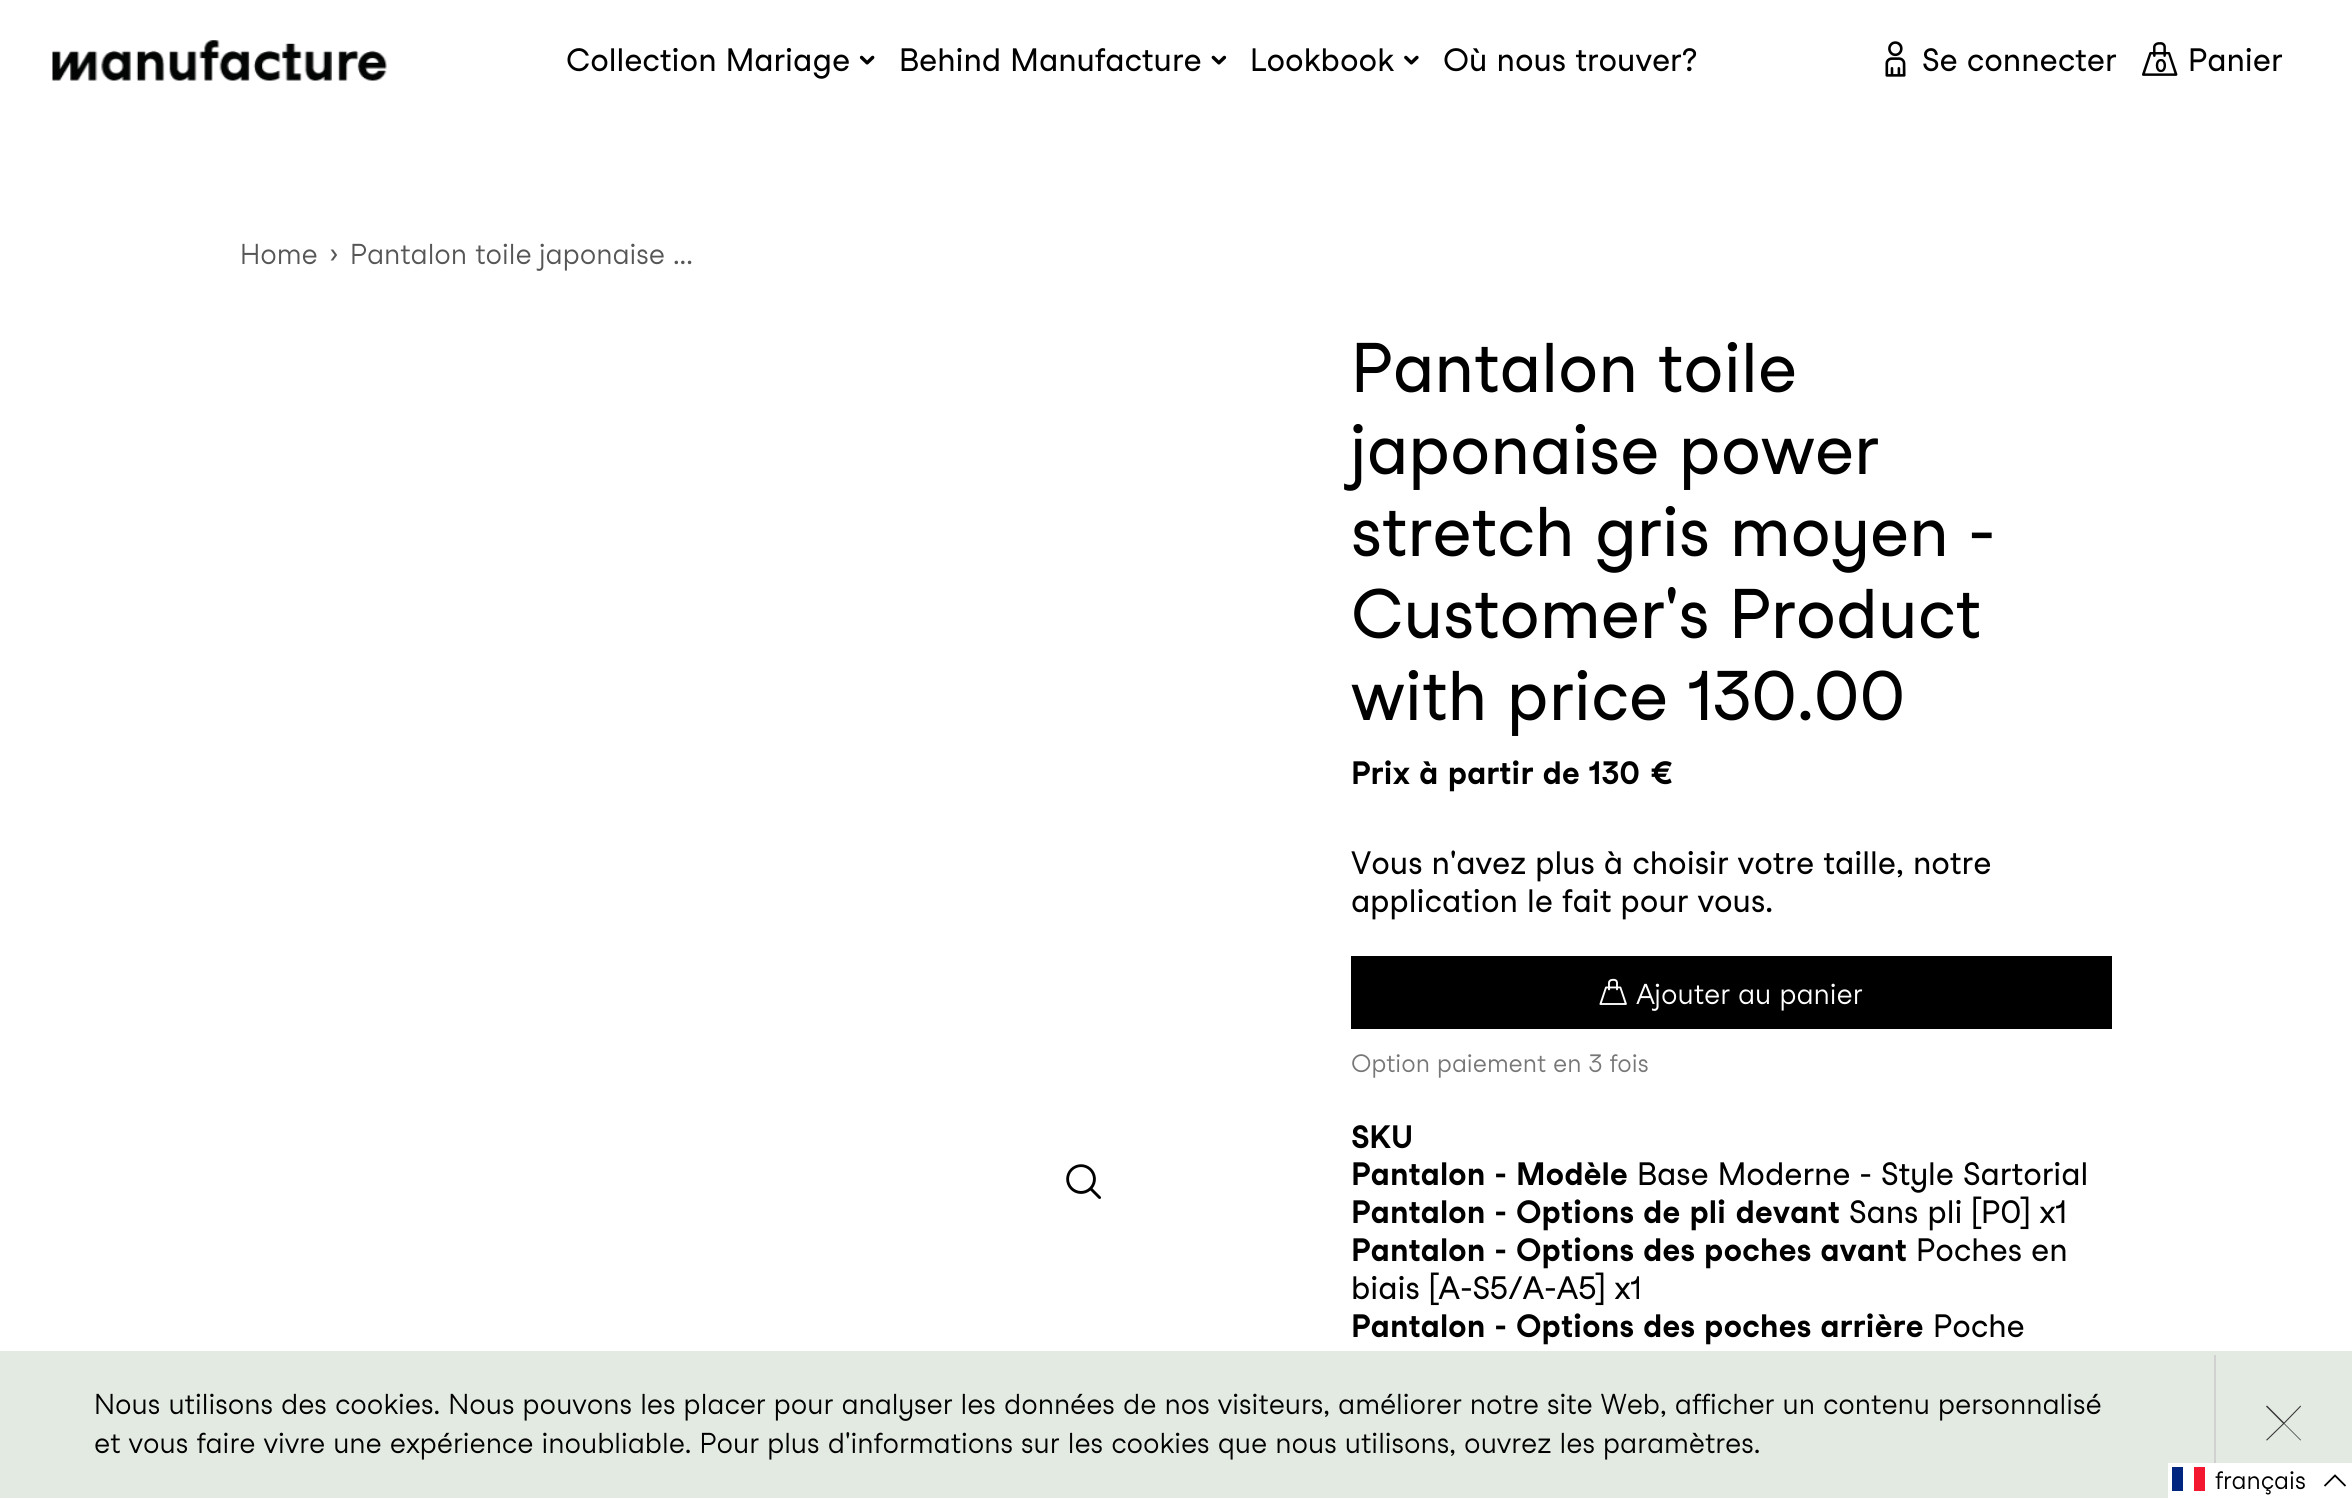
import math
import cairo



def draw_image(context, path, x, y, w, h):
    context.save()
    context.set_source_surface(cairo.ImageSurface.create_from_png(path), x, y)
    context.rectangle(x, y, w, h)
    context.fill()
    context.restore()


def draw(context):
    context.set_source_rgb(1, 1, 1)
    context.paint()
    draw_image(context, "images/1.png", 52, 40, 335, 41)
    draw_image(context, "images/2.png", 859, 55, 16, 10)
    draw_image(context, "images/3.png", 1211, 55, 16, 10)
    draw_image(context, "images/4.png", 1404, 55, 15, 10)
    draw_image(context, "images/5.png", 1885, 41, 21, 36)
    draw_image(context, "images/6.png", 2142, 42, 36, 34)
    draw_image(context, "images/7.png", 1066, 1164, 35, 35)
    context.set_source_rgb(0, 0, 0)
    context.rectangle(1351, 956, 761, 73)
    context.fill()
    draw_image(context, "images/8.png", 1599, 978, 28, 27)
    context.set_source_rgb(227 / 255, 234 / 255, 226 / 255)
    context.rectangle(0, 1351, 2352, 147)
    context.fill()
    context.set_source_rgb(209 / 255, 209 / 255, 209 / 255)
    context.rectangle(2214, 1355, 2, 108)
    context.fill()
    context.set_source_rgb(51 / 255, 51 / 255, 51 / 255)
    context.new_path()
    context.move_to(2301, 1406.5)
    context.line_to(2300.5, 1405.5)
    context.line_to(2284, 1422.5)
    context.line_to(2267, 1405.5)
    context.line_to(2266, 1406.5)
    context.line_to(2283, 1423.5)
    context.line_to(2266, 1440)
    context.line_to(2267, 1440.5)
    context.line_to(2284, 1424)
    context.line_to(2300.5, 1440.5)
    context.line_to(2301, 1440)
    context.line_to(2284.5, 1423.5)
    context.close_path()
    context.fill()
    context.set_source_rgb(1, 1, 1)
    context.rectangle(2168, 1463, 184, 35)
    context.fill()
    context.set_source_rgb(0, 38 / 255, 127 / 255)
    context.rectangle(2172, 1467, 11, 24)
    context.fill()
    context.set_source_rgb(243 / 255, 24 / 255, 48 / 255)
    context.rectangle(2194, 1467, 11, 24)
    context.fill()
    context.new_path()
    context.move_to(2345.5, 1486)
    context.line_to(2335, 1475.5)
    context.line_to(2324.5, 1486)
    context.set_source_rgb(0, 0, 0)
    context.set_line_width(1.8)
    context.stroke()
    context.select_font_face("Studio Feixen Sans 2")
    context.set_font_size(31.5)
    context.move_to(566, 71)
    context.show_text("Collection Mariage")
    context.move_to(899, 71)
    context.show_text("Behind Manufacture")
    context.move_to(1250, 71)
    context.show_text("Lookbook")
    context.move_to(1443, 71)
    context.show_text("Où nous trouver?")
    context.move_to(1922, 71)
    context.show_text("Se connecter")
    context.select_font_face("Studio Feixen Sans", cairo.FontSlant.NORMAL, cairo.FontWeight.BOLD)
    context.set_font_size(18)
    context.move_to(2155, 72)
    context.show_text("0")
    context.select_font_face("Studio Feixen Sans 2")
    context.set_font_size(31.5)
    context.move_to(2188, 71)
    context.show_text("Panier")
    context.select_font_face("Studio Feixen Sans")
    context.set_font_size(28)
    context.set_source_rgb(86 / 255, 86 / 255, 86 / 255)
    context.move_to(240, 264)
    context.show_text("Home")
    context.move_to(330, 264)
    context.show_text("›")
    context.move_to(350, 264)
    context.show_text("Pantalon toile japonaise ...")
    context.select_font_face("Studio Feixen Sans 2")
    context.set_font_size(68.25)
    context.set_source_rgb(0, 0, 0)
    context.move_to(1351, 392)
    context.show_text("Pantalon toile")
    context.move_to(1351, 474)
    context.show_text("japonaise power")
    context.move_to(1351, 556)
    context.show_text("stretch gris moyen -")
    context.move_to(1351, 638)
    context.show_text("Customer's Product")
    context.move_to(1351, 720)
    context.show_text("with price 130.00")
    context.select_font_face("Studio Feixen Sans", cairo.FontSlant.NORMAL, cairo.FontWeight.BOLD)
    context.set_font_size(31.5)
    context.move_to(1351, 784)
    context.show_text("Prix à partir de 130 €")
    context.select_font_face("Studio Feixen Sans 2")
    context.move_to(1351, 874)
    context.show_text("Vous n'avez plus à choisir votre taille, notre")
    context.move_to(1351, 912)
    context.show_text("application le fait pour vous.")
    context.select_font_face("Studio Feixen Sans")
    context.set_font_size(28)
    context.set_source_rgb(1, 1, 1)
    context.move_to(1636, 1004)
    context.show_text("Ajouter au panier")
    context.set_font_size(24.5)
    context.set_source_rgb(119 / 255, 119 / 255, 119 / 255)
    context.move_to(1351, 1072)
    context.show_text("Option paiement en 3 fois")
    context.select_font_face("Studio Feixen Sans", cairo.FontSlant.NORMAL, cairo.FontWeight.BOLD)
    context.set_font_size(31.5)
    context.set_source_rgb(0, 0, 0)
    context.move_to(1351, 1148)
    context.show_text("SKU")
    context.move_to(1351, 1185)
    context.show_text("Pantalon - Modèle")
    context.select_font_face("Studio Feixen Sans 2")
    context.move_to(1637, 1185)
    context.show_text("Base Moderne - Style Sartorial")
    context.select_font_face("Studio Feixen Sans", cairo.FontSlant.NORMAL, cairo.FontWeight.BOLD)
    context.move_to(1351, 1223)
    context.show_text("Pantalon - Options de pli devant")
    context.select_font_face("Studio Feixen Sans 2")
    context.move_to(1849, 1223)
    context.show_text("Sans pli [P0] x1")
    context.select_font_face("Studio Feixen Sans", cairo.FontSlant.NORMAL, cairo.FontWeight.BOLD)
    context.move_to(1351, 1261)
    context.show_text("Pantalon - Options des poches avant")
    context.select_font_face("Studio Feixen Sans 2")
    context.move_to(1916, 1261)
    context.show_text("Poches en")
    context.move_to(1351, 1299)
    context.show_text("biais [A-S5/A-A5] x1")
    context.select_font_face("Studio Feixen Sans", cairo.FontSlant.NORMAL, cairo.FontWeight.BOLD)
    context.move_to(1351, 1337)
    context.show_text("Pantalon - Options des poches arrière")
    context.select_font_face("Studio Feixen Sans 2")
    context.move_to(1933, 1337)
    context.show_text("Poche")
    context.select_font_face("Studio Feixen Sans")
    context.set_font_size(28)
    context.move_to(94, 1414)
    context.show_text("Nous utilisons des cookies. Nous pouvons les placer pour analyser les données de nos visiteurs, améliorer notre site Web, afficher un contenu personnalisé")
    context.move_to(94, 1453)
    context.show_text("et vous faire vivre une expérience inoubliable. Pour plus d'informations sur les cookies que nous utilisons, ouvrez les paramètres.")
    context.set_font_size(24.5)
    context.move_to(2215, 1489)
    context.show_text("français")


surface = cairo.ImageSurface(cairo.Format.RGB24, 2352, 1498)
context = cairo.Context(surface)
options = cairo.FontOptions()
options.set_hint_metrics(cairo.HintMetrics.OFF)
options.set_hint_style(cairo.HintStyle.NONE)
context.set_font_options(options)
context.set_miter_limit(4)
draw(context)
surface.write_to_png("out.png")
